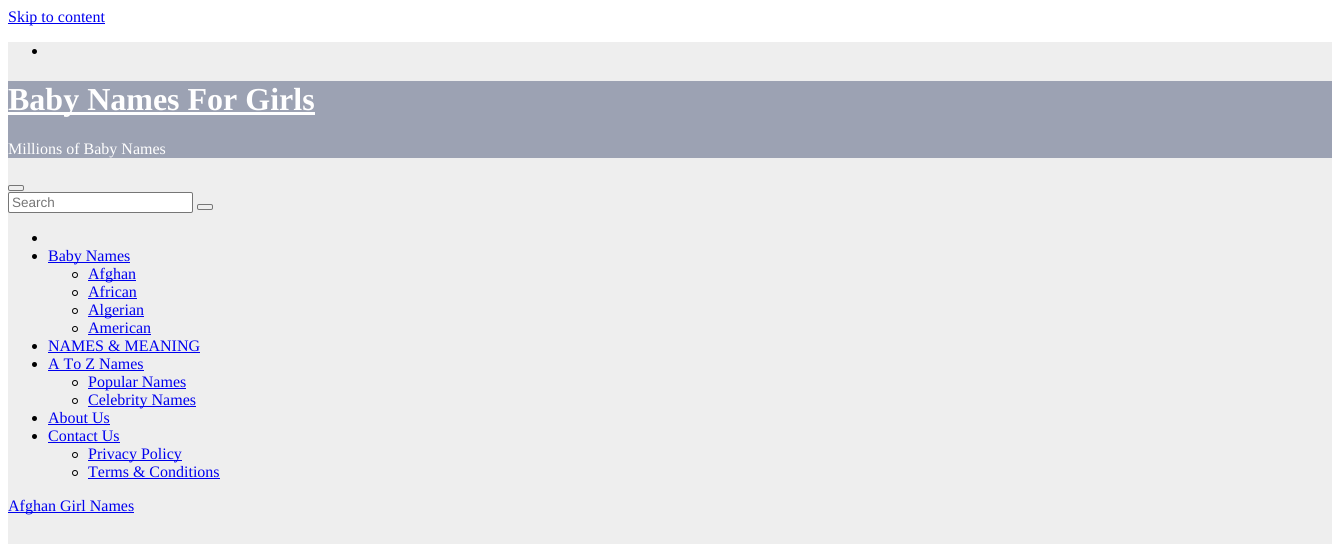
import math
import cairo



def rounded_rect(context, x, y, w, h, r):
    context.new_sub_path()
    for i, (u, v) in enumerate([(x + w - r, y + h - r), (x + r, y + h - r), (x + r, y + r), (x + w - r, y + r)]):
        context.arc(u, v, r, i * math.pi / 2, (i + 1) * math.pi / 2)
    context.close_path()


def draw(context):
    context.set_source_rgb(1, 1, 1)
    context.paint()
    context.set_source_rgb(0, 0, 238 / 255)
    context.rectangle(8, 23, 97, 1)
    context.fill()
    context.set_source_rgb(238 / 255, 238 / 255, 238 / 255)
    context.rectangle(8, 42, 1324, 502)
    context.fill()
    context.set_source_rgb(0, 0, 0)
    context.arc(34.5, 51.5, 2.5, 0, 2 * math.pi)
    context.fill()
    context.set_source_rgb(156 / 255, 162 / 255, 179 / 255)
    context.rectangle(8, 81, 1324, 77)
    context.fill()
    context.set_source_rgb(1, 1, 1)
    context.rectangle(8, 112, 307, 3)
    context.fill()
    rounded_rect(context, 8.5, 185.5, 15, 5, 1.5)
    context.set_source_rgb(118 / 255, 118 / 255, 118 / 255)
    context.set_line_width(1)
    context.stroke()
    context.set_source_rgb(1, 1, 1)
    rounded_rect(context, 8.5, 192.5, 184, 20, 1.5)
    context.fill_preserve()
    context.set_source_rgb(118 / 255, 118 / 255, 118 / 255)
    context.stroke()
    rounded_rect(context, 197.5, 204.5, 15, 5, 1.5)
    context.stroke()
    context.set_source_rgb(0, 0, 0)
    context.arc(34.5, 238.5, 2.5, 0, 2 * math.pi)
    context.fill()
    context.arc(34.5, 256.5, 2.5, 0, 2 * math.pi)
    context.fill()
    context.set_source_rgb(0, 0, 238 / 255)
    context.rectangle(48, 262, 82, 1)
    context.fill()
    context.arc(75, 275, 2.5, 0, 2 * math.pi)
    context.set_source_rgb(0, 0, 0)
    context.stroke()
    context.set_source_rgb(0, 0, 238 / 255)
    context.rectangle(88, 280, 48, 1)
    context.fill()
    context.arc(75, 293, 2.5, 0, 2 * math.pi)
    context.set_source_rgb(0, 0, 0)
    context.stroke()
    context.set_source_rgb(0, 0, 238 / 255)
    context.rectangle(88, 298, 49, 1)
    context.fill()
    context.arc(75, 311, 2.5, 0, 2 * math.pi)
    context.set_source_rgb(0, 0, 0)
    context.stroke()
    context.set_source_rgb(0, 0, 238 / 255)
    context.rectangle(88, 316, 56, 1)
    context.fill()
    context.arc(75, 329, 2.5, 0, 2 * math.pi)
    context.set_source_rgb(0, 0, 0)
    context.stroke()
    context.set_source_rgb(0, 0, 238 / 255)
    context.rectangle(88, 334, 63, 1)
    context.fill()
    context.set_source_rgb(0, 0, 0)
    context.arc(34.5, 346.5, 2.5, 0, 2 * math.pi)
    context.fill()
    context.set_source_rgb(0, 0, 238 / 255)
    context.rectangle(48, 352, 152, 1)
    context.fill()
    context.set_source_rgb(0, 0, 0)
    context.arc(34.5, 364.5, 2.5, 0, 2 * math.pi)
    context.fill()
    context.set_source_rgb(0, 0, 238 / 255)
    context.rectangle(48, 370, 96, 1)
    context.fill()
    context.arc(75, 383, 2.5, 0, 2 * math.pi)
    context.set_source_rgb(0, 0, 0)
    context.stroke()
    context.set_source_rgb(0, 0, 238 / 255)
    context.rectangle(88, 388, 98, 1)
    context.fill()
    context.arc(75, 401, 2.5, 0, 2 * math.pi)
    context.set_source_rgb(0, 0, 0)
    context.stroke()
    context.set_source_rgb(0, 0, 238 / 255)
    context.rectangle(88, 406, 108, 1)
    context.fill()
    context.set_source_rgb(0, 0, 0)
    context.arc(34.5, 418.5, 2.5, 0, 2 * math.pi)
    context.fill()
    context.set_source_rgb(0, 0, 238 / 255)
    context.rectangle(48, 424, 62, 1)
    context.fill()
    context.set_source_rgb(0, 0, 0)
    context.arc(34.5, 436.5, 2.5, 0, 2 * math.pi)
    context.fill()
    context.set_source_rgb(0, 0, 238 / 255)
    context.rectangle(48, 442, 72, 1)
    context.fill()
    context.arc(75, 455, 2.5, 0, 2 * math.pi)
    context.set_source_rgb(0, 0, 0)
    context.stroke()
    context.set_source_rgb(0, 0, 238 / 255)
    context.rectangle(88, 460, 94, 1)
    context.fill()
    context.arc(75, 473, 2.5, 0, 2 * math.pi)
    context.set_source_rgb(0, 0, 0)
    context.stroke()
    context.set_source_rgb(0, 0, 238 / 255)
    context.rectangle(88, 478, 132, 1)
    context.fill()
    context.rectangle(8, 512, 126, 1)
    context.fill()
    context.select_font_face("Liberation Serif")
    context.set_font_size(16)
    context.move_to(8, 22)
    context.show_text("Skip to content")
    context.select_font_face("Liberation Serif", cairo.FontSlant.NORMAL, cairo.FontWeight.BOLD)
    context.set_font_size(32)
    context.set_source_rgb(1, 1, 1)
    context.move_to(8, 110)
    context.show_text("Baby Names For Girls")
    context.select_font_face("Liberation Serif")
    context.set_font_size(16)
    context.move_to(8, 154)
    context.show_text("Millions of Baby Names")
    context.select_font_face("Liberation Sans")
    context.set_font_size(13.5)
    context.set_source_rgb(117 / 255, 117 / 255, 117 / 255)
    context.move_to(12, 207)
    context.show_text("Search")
    context.select_font_face("Liberation Serif")
    context.set_font_size(16)
    context.set_source_rgb(0, 0, 238 / 255)
    context.move_to(48, 261)
    context.show_text("Baby Names")
    context.move_to(88, 279)
    context.show_text("Afghan")
    context.move_to(88, 297)
    context.show_text("African")
    context.move_to(88, 315)
    context.show_text("Algerian")
    context.move_to(88, 333)
    context.show_text("American")
    context.move_to(48, 351)
    context.show_text("NAMES & MEANING")
    context.move_to(48, 369)
    context.show_text("A To Z Names")
    context.move_to(88, 387)
    context.show_text("Popular Names")
    context.move_to(88, 405)
    context.show_text("Celebrity Names")
    context.move_to(48, 423)
    context.show_text("About Us")
    context.move_to(48, 441)
    context.show_text("Contact Us")
    context.move_to(88, 459)
    context.show_text("Privacy Policy")
    context.move_to(88, 477)
    context.show_text("Terms & Conditions")
    context.move_to(8, 511)
    context.show_text("Afghan Girl Names")


surface = cairo.ImageSurface(cairo.Format.RGB24, 1340, 544)
context = cairo.Context(surface)
options = cairo.FontOptions()
options.set_hint_metrics(cairo.HintMetrics.OFF)
options.set_hint_style(cairo.HintStyle.NONE)
context.set_font_options(options)
context.set_miter_limit(4)
draw(context)
surface.write_to_png("out.png")
